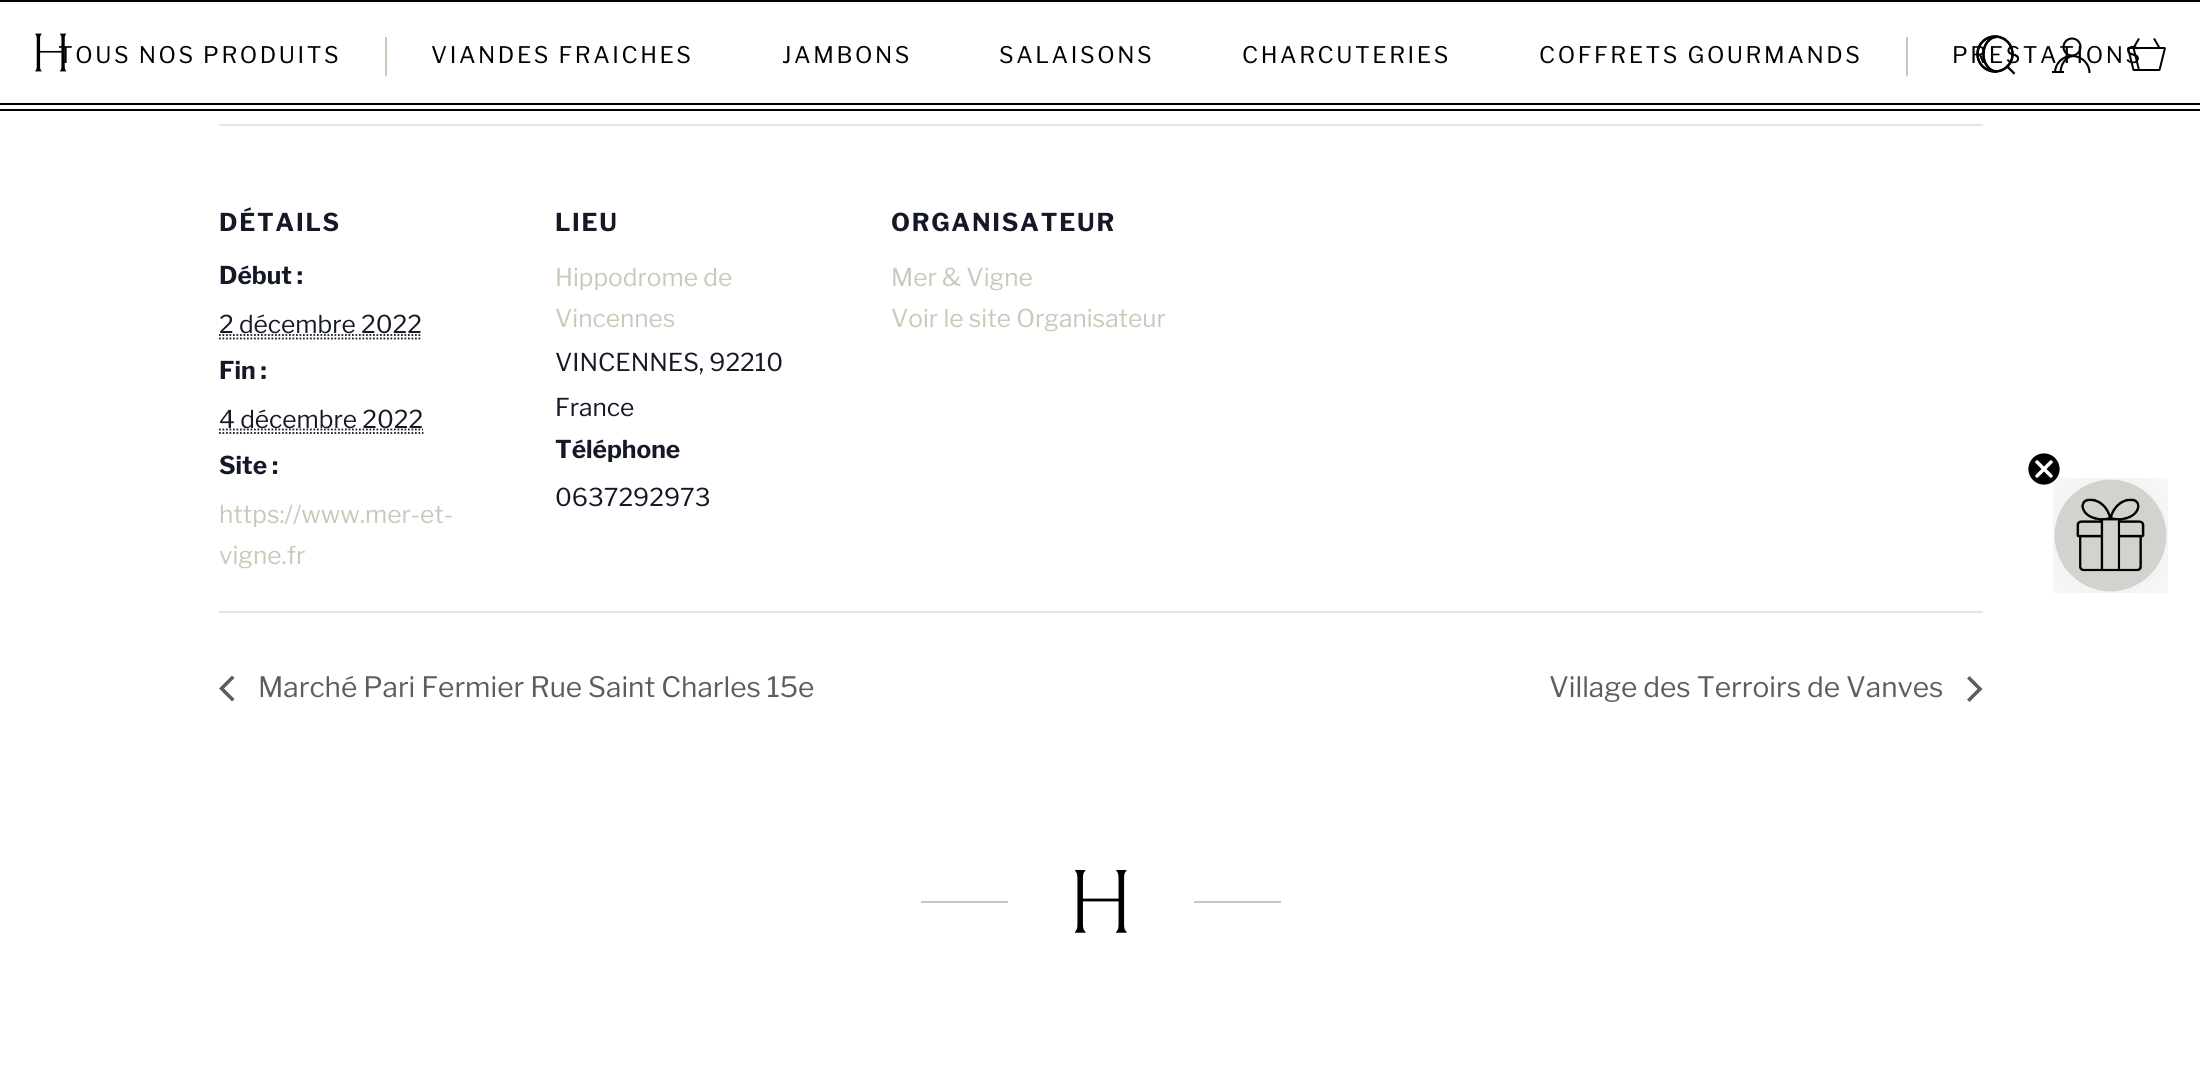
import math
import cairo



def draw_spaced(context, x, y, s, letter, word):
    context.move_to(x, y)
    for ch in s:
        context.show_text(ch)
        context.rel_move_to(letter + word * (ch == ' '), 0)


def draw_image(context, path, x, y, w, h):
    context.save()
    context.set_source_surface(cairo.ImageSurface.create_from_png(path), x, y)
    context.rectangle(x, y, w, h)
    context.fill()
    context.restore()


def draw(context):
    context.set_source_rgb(1, 1, 1)
    context.paint()
    context.arc(2072, 47, 8.5, 0, 2 * math.pi)
    context.set_source_rgb(0, 0, 0)
    context.set_line_width(2.1)
    context.stroke()
    context.new_path()
    context.move_to(2089.5, 73)
    context.curve_to(2089.5, 63.5, 2081.5, 56, 2072, 56)
    context.curve_to(2062.5, 56, 2055, 63.5, 2055, 73)
    context.move_to(2074, 56)
    context.curve_to(2066.5, 56, 2060.5, 63.5, 2060.5, 73)
    context.set_line_join(cairo.LineJoin.BEVEL)
    context.stroke()
    context.rectangle(2052, 71, 12, 2)
    context.fill()
    context.new_path()
    context.move_to(2128, 48)
    context.line_to(2165, 48)
    context.line_to(2159.5, 70)
    context.line_to(2133.5, 70)
    context.close_path()
    context.move_to(2133.5, 48)
    context.line_to(2139, 70)
    context.move_to(2139, 38.5)
    context.line_to(2133.5, 48)
    context.move_to(2154, 38.5)
    context.line_to(2159.5, 48)
    context.set_line_width(2)
    context.stroke()
    context.rectangle(0, 0, 2200, 2)
    context.fill()
    context.rectangle(0, 103, 2200, 2)
    context.fill()
    context.rectangle(0, 109, 2200, 2)
    context.fill()
    context.set_source_rgb(203 / 255, 200 / 255, 185 / 255)
    context.new_path()
    context.move_to(387, 37)
    context.line_to(387, 77)
    context.line_to(385, 75)
    context.line_to(385, 37)
    context.close_path()
    context.fill()
    context.new_path()
    context.move_to(1906, 77)
    context.line_to(1906, 37)
    context.line_to(1908, 37)
    context.line_to(1908, 75)
    context.close_path()
    context.fill()
    context.set_source_rgb(228 / 255, 228 / 255, 228 / 255)
    context.rectangle(219, 124, 1764, 2)
    context.fill()
    context.new_path()
    context.move_to(219, 338.5)
    context.line_to(422, 338.5)
    context.set_source_rgb(20 / 255, 24 / 255, 39 / 255)
    context.set_line_width(1.8)
    context.set_line_join(cairo.LineJoin.MITER)
    context.set_dash([1.75, 1.75])
    context.stroke()
    context.new_path()
    context.move_to(219, 335)
    context.line_to(421.5, 335)
    context.stroke()
    context.new_path()
    context.move_to(219, 433)
    context.line_to(423.5, 433)
    context.stroke()
    context.new_path()
    context.move_to(219, 429.5)
    context.line_to(423, 429.5)
    context.stroke()
    context.set_source_rgb(228 / 255, 228 / 255, 228 / 255)
    context.rectangle(219, 611, 1764, 2)
    context.fill()
    context.set_source_rgb(93 / 255, 93 / 255, 93 / 255)
    context.new_path()
    context.move_to(234.5, 699)
    context.line_to(232, 701.5)
    context.line_to(219, 688.5)
    context.line_to(232, 675.5)
    context.line_to(234.5, 678)
    context.line_to(224, 688.5)
    context.close_path()
    context.fill()
    context.new_path()
    context.move_to(1967, 678.5)
    context.line_to(1969.5, 676)
    context.line_to(1982.5, 689)
    context.line_to(1969.5, 702)
    context.line_to(1967, 699.5)
    context.line_to(1977.5, 689)
    context.close_path()
    context.fill()
    context.set_source_rgb(203 / 255, 200 / 255, 185 / 255)
    context.rectangle(921, 901, 87, 2)
    context.fill()
    draw_image(context, "images/3.png", 1075, 870, 52, 63)
    context.rectangle(1194, 901, 87, 2)
    context.fill()
    draw_image(context, "images/4.png", 2053, 478, 115, 115)
    context.set_source_rgb(0, 0, 0)
    context.arc(2044, 469, 16.5, 0, 2 * math.pi)
    context.fill()
    context.save()
    context.rectangle(2027, 452, 35, 35)
    context.clip()
    context.arc(2044, 469, 16.5, 0, 2 * math.pi)
    context.set_source_rgb(1, 1, 1)
    context.set_dash([])
    context.stroke()
    context.restore()
    context.new_path()
    context.move_to(2037, 462)
    context.line_to(2051, 476)
    context.move_to(2037, 476)
    context.line_to(2051, 462)
    context.close_path()
    context.set_source_rgb(1, 1, 1)
    context.set_line_width(3.5)
    context.set_line_cap(cairo.LineCap.ROUND)
    context.set_line_join(cairo.LineJoin.ROUND)
    context.set_dash([])
    context.stroke()
    context.select_font_face("Libre Franklin")
    context.set_font_size(22.75)
    context.set_source_rgb(0, 0, 0)
    draw_spaced(context, 58, 63, "TOUS NOS PRODUITS", 2.6, 0)
    draw_image(context, "images/2.png", 35, 33, 32, 39)
    draw_spaced(context, 431, 63, "VIANDES FRAICHES", 2.6, 0)
    draw_spaced(context, 782, 63, "JAMBONS", 2.6, 0)
    draw_spaced(context, 999, 63, "SALAISONS", 2.6, 0)
    draw_spaced(context, 1242, 63, "CHARCUTERIES", 2.6, 0)
    draw_spaced(context, 1539, 63, "COFFRETS GOURMANDS", 2.6, 0)
    draw_spaced(context, 1952, 63, "PRESTATIONS", 2.6, 0)
    draw_image(context, "images/1.png", 1976, 35, 40, 40)
    context.select_font_face("Libre Franklin", cairo.FontSlant.NORMAL, cairo.FontWeight.BOLD)
    context.set_font_size(24.5)
    context.set_source_rgb(20 / 255, 24 / 255, 39 / 255)
    draw_spaced(context, 219, 231, "DÉTAILS", 1.75, 0)
    context.move_to(219, 284)
    context.show_text("Début :")
    context.select_font_face("Libre Franklin")
    context.move_to(219, 333)
    context.show_text("2 décembre 2022")
    context.select_font_face("Libre Franklin", cairo.FontSlant.NORMAL, cairo.FontWeight.BOLD)
    context.move_to(219, 379)
    context.show_text("Fin :")
    context.select_font_face("Libre Franklin")
    context.move_to(219, 428)
    context.show_text("4 décembre 2022")
    context.select_font_face("Libre Franklin", cairo.FontSlant.NORMAL, cairo.FontWeight.BOLD)
    context.move_to(219, 474)
    context.show_text("Site :")
    context.select_font_face("Libre Franklin")
    context.set_source_rgb(203 / 255, 200 / 255, 185 / 255)
    context.move_to(219, 523)
    context.show_text("https://www.mer-et-")
    context.move_to(219, 564)
    context.show_text("vigne.fr")
    context.select_font_face("Libre Franklin", cairo.FontSlant.NORMAL, cairo.FontWeight.BOLD)
    context.set_source_rgb(20 / 255, 24 / 255, 39 / 255)
    draw_spaced(context, 555, 231, "LIEU", 1.75, 0)
    context.select_font_face("Libre Franklin")
    context.set_source_rgb(203 / 255, 200 / 255, 185 / 255)
    context.move_to(555, 286)
    context.show_text("Hippodrome de")
    context.move_to(555, 327)
    context.show_text("Vincennes")
    context.set_source_rgb(20 / 255, 24 / 255, 39 / 255)
    context.move_to(555, 371)
    context.show_text("VINCENNES, 92210")
    context.move_to(555, 416)
    context.show_text("France")
    context.select_font_face("Libre Franklin", cairo.FontSlant.NORMAL, cairo.FontWeight.BOLD)
    context.move_to(555, 458)
    context.show_text("Téléphone")
    context.select_font_face("Libre Franklin")
    context.move_to(555, 506)
    context.show_text("0637292973")
    context.select_font_face("Libre Franklin", cairo.FontSlant.NORMAL, cairo.FontWeight.BOLD)
    draw_spaced(context, 891, 231, "ORGANISATEUR", 1.75, 0)
    context.select_font_face("Libre Franklin")
    context.set_source_rgb(203 / 255, 200 / 255, 185 / 255)
    context.move_to(891, 286)
    context.show_text("Mer & Vigne")
    context.move_to(891, 327)
    context.show_text("Voir le site Organisateur")
    context.set_font_size(28)
    context.set_source_rgb(93 / 255, 93 / 255, 93 / 255)
    context.move_to(258, 697)
    context.show_text("Marché Pari Fermier Rue Saint Charles 15e")
    context.move_to(1549, 697)
    context.show_text("Village des Terroirs de Vanves")


surface = cairo.ImageSurface(cairo.Format.RGB24, 2200, 1071)
context = cairo.Context(surface)
options = cairo.FontOptions()
options.set_hint_metrics(cairo.HintMetrics.OFF)
options.set_hint_style(cairo.HintStyle.NONE)
context.set_font_options(options)
context.set_miter_limit(4)
draw(context)
surface.write_to_png("out.png")
